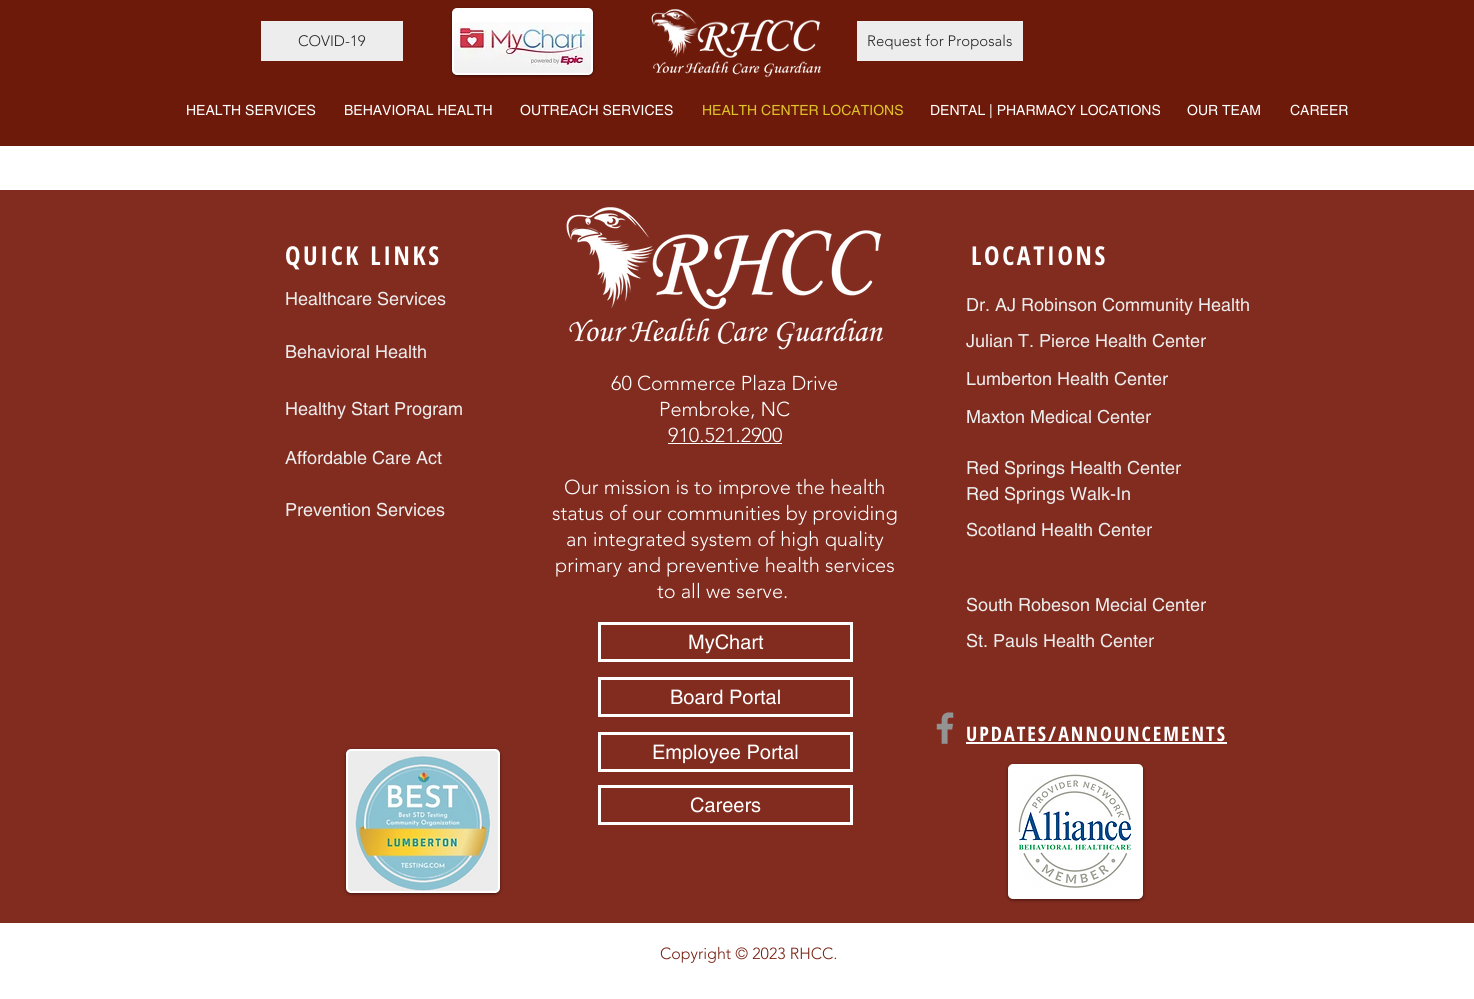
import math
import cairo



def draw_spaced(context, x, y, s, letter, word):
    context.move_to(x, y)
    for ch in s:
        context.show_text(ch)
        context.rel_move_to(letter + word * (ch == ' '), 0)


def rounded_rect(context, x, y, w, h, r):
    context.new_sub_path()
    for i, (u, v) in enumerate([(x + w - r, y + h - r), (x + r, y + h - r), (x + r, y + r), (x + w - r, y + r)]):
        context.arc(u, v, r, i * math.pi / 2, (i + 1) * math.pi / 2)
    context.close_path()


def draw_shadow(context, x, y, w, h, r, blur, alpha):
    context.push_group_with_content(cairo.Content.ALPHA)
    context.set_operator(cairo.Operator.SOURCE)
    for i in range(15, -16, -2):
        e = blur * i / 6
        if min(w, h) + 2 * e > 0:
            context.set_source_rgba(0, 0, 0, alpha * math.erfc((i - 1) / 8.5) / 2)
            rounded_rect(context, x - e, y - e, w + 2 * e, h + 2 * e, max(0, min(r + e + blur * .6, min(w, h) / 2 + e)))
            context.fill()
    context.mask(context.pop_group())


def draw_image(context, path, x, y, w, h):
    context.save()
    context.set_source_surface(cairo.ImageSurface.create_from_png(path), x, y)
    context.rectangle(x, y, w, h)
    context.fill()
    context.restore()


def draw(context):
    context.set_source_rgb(1, 1, 1)
    context.paint()
    context.set_source_rgb(110 / 255, 26 / 255, 10 / 255)
    context.rectangle(0, 0, 1474, 146)
    context.fill()
    context.set_source_rgb(237 / 255, 237 / 255, 237 / 255)
    context.rectangle(261, 21, 142, 40)
    context.fill()
    context.set_source_rgb(0, 0, 0)
    draw_shadow(context, 452, 9, 141, 67, 5, 1.5, 0.5)
    context.set_source_rgb(1, 1, 1)
    rounded_rect(context, 453, 9, 139, 65, 4)
    context.fill_preserve()
    context.stroke()
    draw_image(context, "images/1.png", 454, 22, 137, 51)
    draw_image(context, "images/2.png", 651, 9, 171, 69)
    context.set_source_rgb(237 / 255, 237 / 255, 237 / 255)
    context.rectangle(857, 21, 166, 40)
    context.fill()
    context.set_source_rgb(130 / 255, 43 / 255, 31 / 255)
    context.rectangle(0, 190, 1474, 733)
    context.fill()
    draw_image(context, "images/3.png", 566, 207, 318, 143)
    context.set_source_rgb(1, 1, 1)
    context.rectangle(668, 443, 114, 1)
    context.fill()
    context.rectangle(599.5, 623.5, 252, 37)
    context.set_line_width(3)
    context.stroke()
    context.rectangle(599.5, 678.5, 252, 37)
    context.stroke()
    draw_image(context, "images/4.png", 936, 712, 18, 32)
    context.rectangle(966, 742, 261, 2)
    context.fill()
    context.set_source_rgb(0, 0, 0)
    draw_shadow(context, 346, 750, 154, 144, 5, 1.5, 0.5)
    context.set_source_rgb(1, 1, 1)
    rounded_rect(context, 347, 750, 152, 142, 4)
    context.fill_preserve()
    context.set_line_width(2)
    context.stroke()
    draw_image(context, "images/5.png", 348, 751, 150, 140)
    context.rectangle(599.5, 733.5, 252, 37)
    context.set_line_width(3)
    context.stroke()
    context.rectangle(599.5, 786.5, 252, 37)
    context.stroke()
    context.set_source_rgb(0, 0, 0)
    draw_shadow(context, 1008, 765, 135, 135, 5, 1.5, 0.5)
    context.set_source_rgb(1, 1, 1)
    rounded_rect(context, 1009, 765, 133, 133, 4)
    context.fill_preserve()
    context.set_line_width(2)
    context.stroke()
    draw_image(context, "images/6.png", 1018, 774, 114, 114)
    context.select_font_face("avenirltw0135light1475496 Light")
    context.set_font_size(15)
    context.set_source_rgb(37 / 255, 37 / 255, 37 / 255)
    context.move_to(298, 46)
    context.show_text("COVID-19")
    context.move_to(867, 46)
    context.show_text("Request for Proposals")
    context.select_font_face("helvetica")
    context.set_font_size(14)
    context.set_source_rgb(1, 1, 1)
    context.move_to(186, 115)
    context.show_text("HEALTH SERVICES")
    context.move_to(344, 115)
    context.show_text("BEHAVIORAL HEALTH")
    context.move_to(520, 115)
    context.show_text("OUTREACH SERVICES")
    context.set_source_rgb(222 / 255, 195 / 255, 40 / 255)
    context.move_to(702, 115)
    context.show_text("HEALTH CENTER LOCATIONS")
    context.set_source_rgb(1, 1, 1)
    context.move_to(930, 115)
    context.show_text("DENTAL | PHARMACY LOCATIONS")
    context.move_to(1187, 115)
    context.show_text("OUR TEAM")
    context.move_to(1290, 115)
    context.show_text("CAREER")
    context.select_font_face("Open Sans Condensed", cairo.FontSlant.NORMAL, cairo.FontWeight.BOLD)
    context.set_font_size(26)
    draw_spaced(context, 285, 265, "QUICK LINKS", 2.6, 0)
    draw_spaced(context, 971, 265, "LOCATIONS", 2.6, 0)
    context.select_font_face("helvetica")
    context.set_font_size(18)
    context.set_source_rgb(237 / 255, 237 / 255, 237 / 255)
    context.move_to(285, 305)
    context.show_text("Healthcare Services")
    context.move_to(966, 311)
    context.show_text("Dr. AJ Robinson Community Health")
    context.move_to(966, 347)
    context.show_text("Julian T. Pierce Health Center")
    context.move_to(285, 358)
    context.show_text("Behavioral Health")
    context.move_to(285, 415)
    context.show_text("Healthy Start Program")
    context.select_font_face("avenirltw0135light1475496 Light")
    context.set_font_size(20)
    context.set_source_rgb(1, 1, 1)
    context.move_to(611, 390)
    context.show_text("60 Commerce Plaza Drive")
    context.move_to(659, 416)
    context.show_text("Pembroke, NC")
    context.move_to(668, 442)
    context.show_text("910.521.2900")
    context.select_font_face("helvetica")
    context.set_font_size(18)
    context.set_source_rgb(237 / 255, 237 / 255, 237 / 255)
    context.move_to(966, 385)
    context.show_text("Lumberton Health Center")
    context.move_to(966, 423)
    context.show_text("Maxton Medical Center")
    context.move_to(285, 464)
    context.show_text("Affordable Care Act")
    context.move_to(966, 474)
    context.show_text("Red Springs Health Center")
    context.select_font_face("avenirltw0135light1475496 Light")
    context.set_font_size(20)
    context.set_source_rgb(1, 1, 1)
    context.move_to(564, 494)
    context.show_text("Our mission is to improve the health")
    context.move_to(552, 520)
    context.show_text("status of our communities by providing")
    context.move_to(566, 546)
    context.show_text("an integrated system of high quality")
    context.move_to(555, 572)
    context.show_text("primary and preventive health services")
    context.move_to(657, 598)
    context.show_text("to all we serve.")
    context.select_font_face("helvetica")
    context.set_font_size(18)
    context.set_source_rgb(237 / 255, 237 / 255, 237 / 255)
    context.move_to(966, 500)
    context.show_text("Red Springs Walk-In")
    context.move_to(285, 516)
    context.show_text("Prevention Services")
    context.move_to(966, 536)
    context.show_text("Scotland Health Center")
    context.move_to(966, 611)
    context.show_text("South Robeson Mecial Center")
    context.set_font_size(20)
    context.set_source_rgb(1, 1, 1)
    context.move_to(688, 649)
    context.show_text("MyChart")
    context.set_font_size(18)
    context.set_source_rgb(237 / 255, 237 / 255, 237 / 255)
    context.move_to(966, 647)
    context.show_text("St. Pauls Health Center")
    context.set_font_size(20)
    context.set_source_rgb(1, 1, 1)
    context.move_to(670, 704)
    context.show_text("Board Portal")
    context.select_font_face("Open Sans Condensed", cairo.FontSlant.NORMAL, cairo.FontWeight.BOLD)
    draw_spaced(context, 966, 741, "UPDATES/ANNOUNCEMENTS", 2, 0)
    context.select_font_face("helvetica")
    context.move_to(652, 759)
    context.show_text("Employee Portal")
    context.move_to(690, 812)
    context.show_text("Careers")
    context.select_font_face("avenirltw0135light1475496 Light")
    context.set_font_size(16)
    context.set_source_rgb(117 / 255, 30 / 255, 13 / 255)
    context.move_to(660, 959)
    context.show_text("Copyright © 2023 RHCC.")


surface = cairo.ImageSurface(cairo.Format.RGB24, 1474, 999)
context = cairo.Context(surface)
options = cairo.FontOptions()
options.set_hint_metrics(cairo.HintMetrics.OFF)
options.set_hint_style(cairo.HintStyle.NONE)
context.set_font_options(options)
context.set_miter_limit(4)
draw(context)
surface.write_to_png("out.png")
